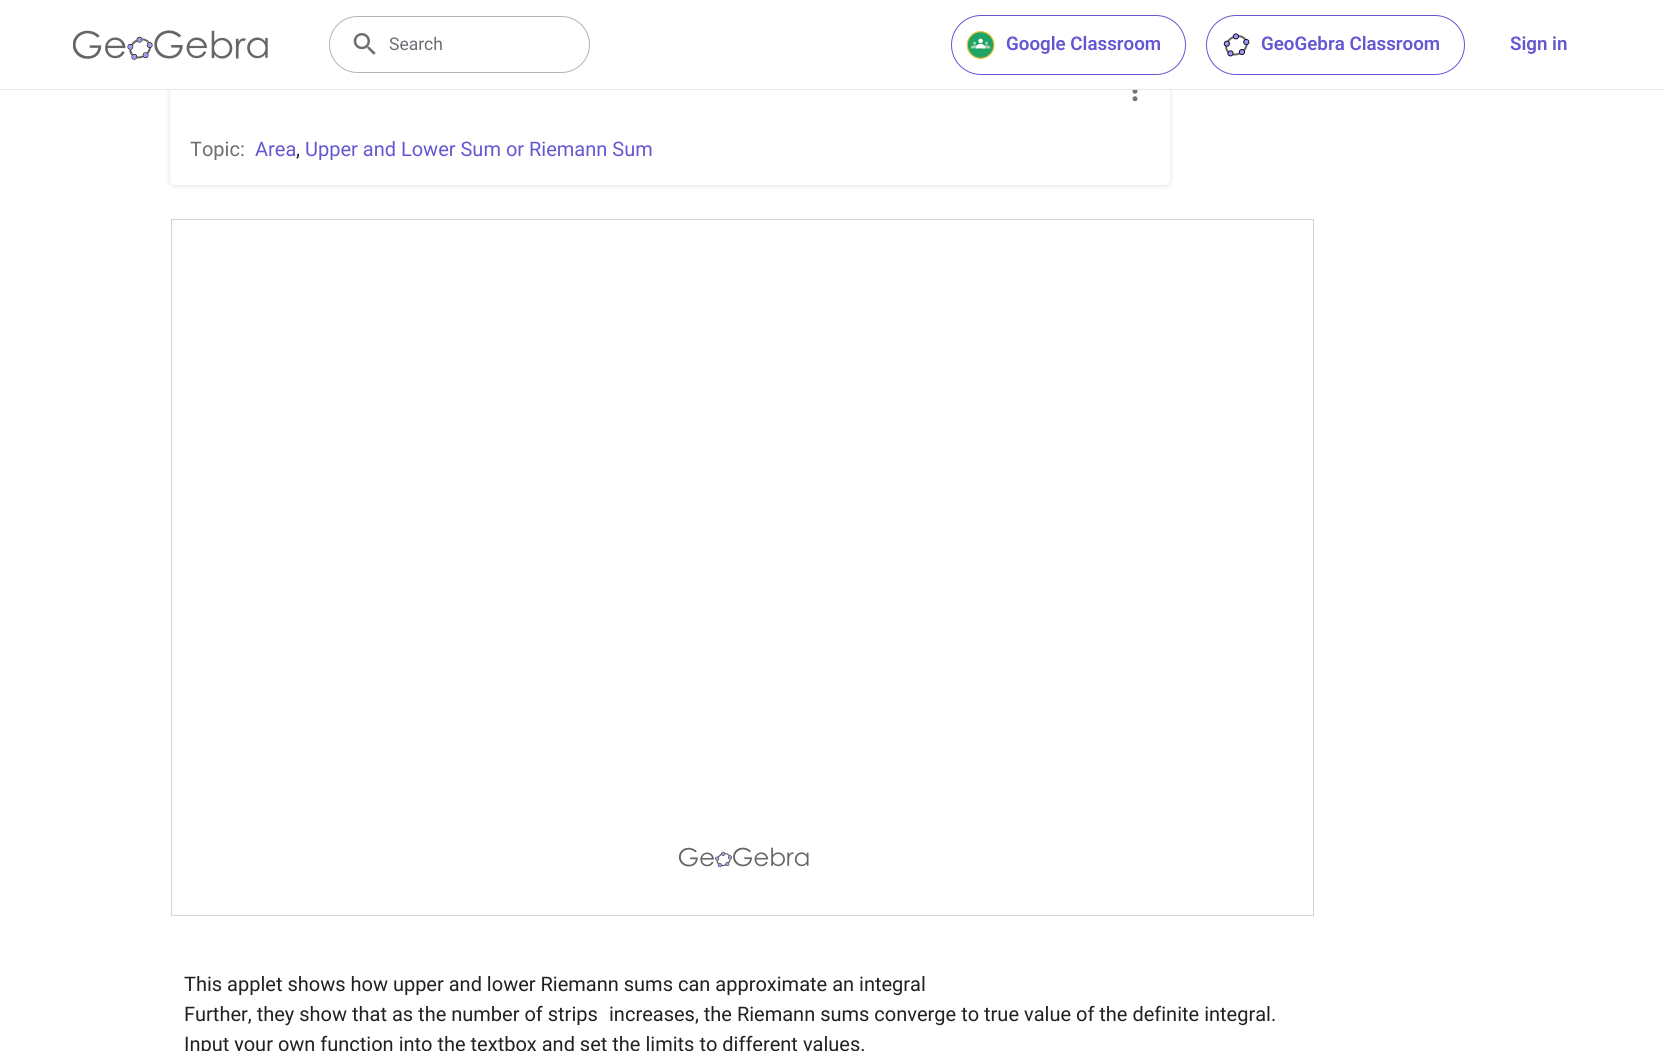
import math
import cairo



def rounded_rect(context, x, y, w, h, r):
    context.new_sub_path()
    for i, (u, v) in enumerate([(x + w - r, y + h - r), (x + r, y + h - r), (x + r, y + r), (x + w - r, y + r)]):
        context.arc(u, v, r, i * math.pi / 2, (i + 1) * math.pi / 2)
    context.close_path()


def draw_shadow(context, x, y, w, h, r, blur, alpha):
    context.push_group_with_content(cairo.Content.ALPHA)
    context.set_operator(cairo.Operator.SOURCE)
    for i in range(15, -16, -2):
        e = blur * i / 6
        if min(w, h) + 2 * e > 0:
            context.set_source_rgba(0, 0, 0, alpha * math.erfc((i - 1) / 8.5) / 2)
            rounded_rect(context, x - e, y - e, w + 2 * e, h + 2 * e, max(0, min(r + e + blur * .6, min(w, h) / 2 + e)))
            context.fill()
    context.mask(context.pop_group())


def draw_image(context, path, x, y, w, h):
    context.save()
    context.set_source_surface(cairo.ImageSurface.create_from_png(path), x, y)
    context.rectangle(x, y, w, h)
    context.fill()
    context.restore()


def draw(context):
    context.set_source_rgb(1, 1, 1)
    context.paint()
    context.set_source_rgb(28 / 255, 28 / 255, 31 / 255)
    draw_shadow(context, 170, 56, 1000, 130, 5, 2.5, 0.14)
    context.set_source_rgb(1, 1, 1)
    rounded_rect(context, 170, 55, 1000, 130, 5)
    context.fill()
    context.rectangle(167, 53, 1006, 36)
    context.fill()
    context.set_source_rgb(230 / 255, 230 / 255, 235 / 255)
    context.rectangle(0, 89, 1664, 1)
    context.fill()
    draw_image(context, "images/1.png", 73, 30, 195, 30)
    rounded_rect(context, 329.5, 16.5, 260, 56, 28)
    context.set_source_rgb(180 / 255, 179 / 255, 186 / 255)
    context.set_line_width(1)
    context.stroke()
    draw_image(context, "images/2.png", 353, 33, 23, 22)
    rounded_rect(context, 951.5, 15.5, 234, 59, 29.5)
    context.set_source_rgb(101 / 255, 87 / 255, 210 / 255)
    context.stroke()
    draw_image(context, "images/3.png", 966, 31, 29, 28)
    rounded_rect(context, 1206.5, 15.5, 258, 59, 29.5)
    context.stroke()
    draw_image(context, "images/4.png", 1223, 33, 27, 24)
    draw_image(context, "images/5.png", 1132, 90, 6, 12)
    draw_image(context, "images/6.png", 678, 847, 131, 21)
    context.rectangle(171.5, 219.5, 1142, 696)
    context.set_source_rgb(211 / 255, 211 / 255, 211 / 255)
    context.stroke()
    context.select_font_face("Roboto")
    context.set_font_size(17.5)
    context.set_source_rgb(110 / 255, 109 / 255, 115 / 255)
    context.move_to(389, 50)
    context.show_text("Search")
    context.select_font_face("Roboto SemiBold")
    context.set_font_size(18.75)
    context.set_source_rgb(101 / 255, 87 / 255, 210 / 255)
    context.move_to(1006, 50)
    context.show_text("Google Classroom")
    context.move_to(1261, 50)
    context.show_text("GeoGebra Classroom")
    context.move_to(1510, 50)
    context.show_text("Sign in")
    context.select_font_face("Roboto")
    context.set_font_size(20)
    context.set_source_rgb(110 / 255, 109 / 255, 115 / 255)
    context.move_to(190, 156)
    context.show_text("Topic:")
    context.set_source_rgb(101 / 255, 87 / 255, 210 / 255)
    context.move_to(255, 156)
    context.show_text("Area")
    context.set_source_rgb(33 / 255, 33 / 255, 33 / 255)
    context.move_to(296, 156)
    context.show_text(",")
    context.set_source_rgb(101 / 255, 87 / 255, 210 / 255)
    context.move_to(305, 156)
    context.show_text("Upper and Lower Sum or Riemann Sum")
    context.set_source_rgb(33 / 255, 33 / 255, 33 / 255)
    context.move_to(184, 991)
    context.show_text("This applet shows how upper and lower Riemann sums can approximate an integral")
    context.move_to(184, 1021)
    context.show_text("Further, they show that as the number of strips")
    context.move_to(609, 1021)
    context.show_text("increases, the Riemann sums converge to true value of the definite integral.")
    context.move_to(184, 1051)
    context.show_text("Input your own function into the textbox and set the limits to different values.")


surface = cairo.ImageSurface(cairo.Format.RGB24, 1664, 1051)
context = cairo.Context(surface)
options = cairo.FontOptions()
options.set_hint_metrics(cairo.HintMetrics.OFF)
options.set_hint_style(cairo.HintStyle.NONE)
context.set_font_options(options)
context.set_miter_limit(4)
draw(context)
surface.write_to_png("out.png")
